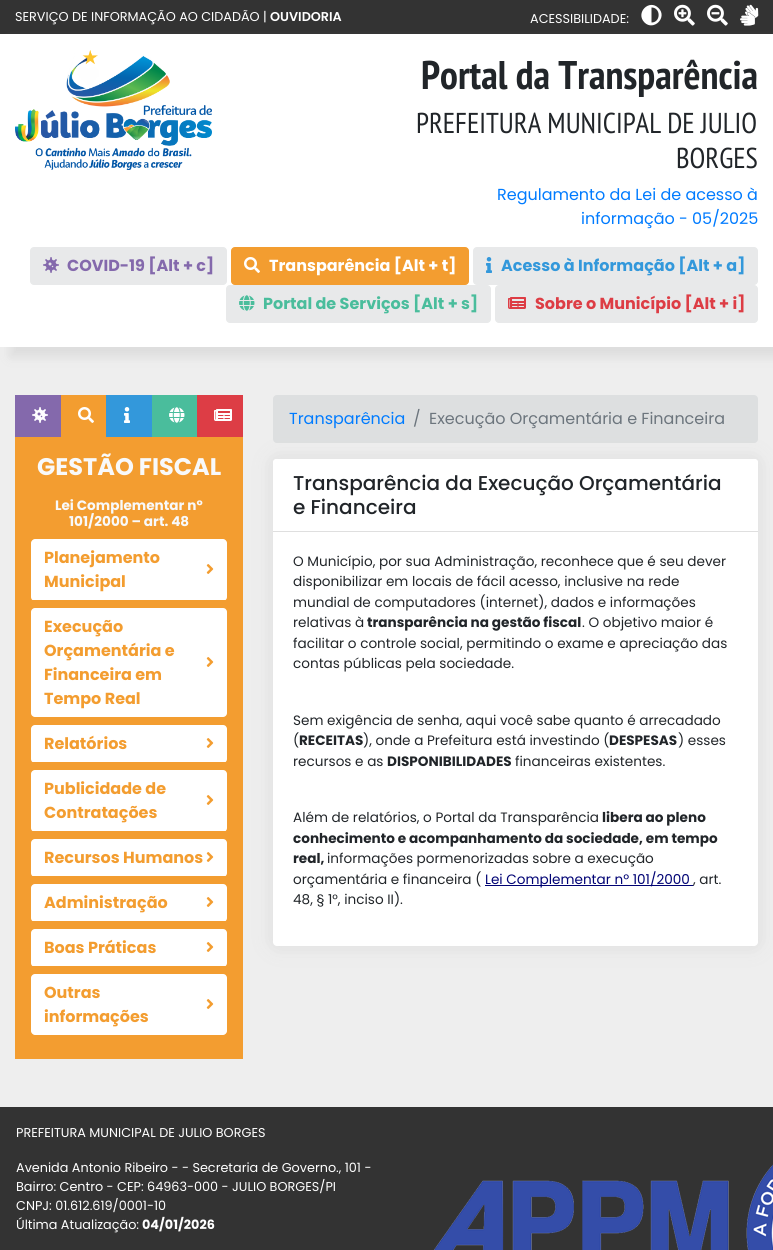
import math
import cairo



def rounded_rect(context, x, y, w, h, r):
    context.new_sub_path()
    for i, (u, v) in enumerate([(x + w - r, y + h - r), (x + r, y + h - r), (x + r, y + r), (x + w - r, y + r)]):
        context.arc(u, v, r, i * math.pi / 2, (i + 1) * math.pi / 2)
    context.close_path()


def draw_shadow(context, x, y, w, h, r, blur, alpha):
    context.push_group_with_content(cairo.Content.ALPHA)
    context.set_operator(cairo.Operator.SOURCE)
    for i in range(15, -16, -2):
        e = blur * i / 6
        if min(w, h) + 2 * e > 0:
            context.set_source_rgba(0, 0, 0, alpha * math.erfc((i - 1) / 8.5) / 2)
            rounded_rect(context, x - e, y - e, w + 2 * e, h + 2 * e, max(0, min(r + e + blur * .6, min(w, h) / 2 + e)))
            context.fill()
    context.mask(context.pop_group())


def draw_image(context, path, x, y, w, h):
    context.save()
    context.set_source_surface(cairo.ImageSurface.create_from_png(path), x, y)
    context.rectangle(x, y, w, h)
    context.fill()
    context.restore()


def draw(context):
    context.set_source_rgb(238 / 255, 238 / 255, 238 / 255)
    context.paint()
    context.set_source_rgb(51 / 255, 51 / 255, 51 / 255)
    context.rectangle(0, 0, 773, 34)
    context.fill()
    context.set_source_rgb(1, 1, 1)
    context.new_path()
    context.move_to(644.5, 22.5)
    context.curve_to(635, 13, 649, -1.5, 658.5, 8)
    context.curve_to(668, 17.5, 653.5, 31.5, 644.5, 22.5)
    context.close_path()
    context.move_to(651.5, 22.5)
    context.curve_to(661, 22.5, 661, 7.5, 651.5, 7.5)
    context.close_path()
    context.fill()
    draw_image(context, "images/1.png", 674, 4, 21, 22)
    draw_image(context, "images/2.png", 707, 4, 21, 22)
    draw_image(context, "images/3.png", 740, 4, 19, 22)
    context.set_source_rgb(221 / 255, 221 / 255, 221 / 255)
    draw_shadow(context, 10, 44, 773, 313, 0, 5, 1)
    context.set_source_rgb(1, 1, 1)
    context.rectangle(0, 34, 773, 313)
    context.fill()
    draw_image(context, "images/4.png", 15, 50, 197, 120)
    context.set_source_rgb(232 / 255, 233 / 255, 234 / 255)
    rounded_rect(context, 30.5, 247.5, 196, 37, 3.5)
    context.fill_preserve()
    context.set_line_width(1)
    context.stroke()
    draw_image(context, "images/5.png", 43, 257, 16, 16)
    context.set_source_rgb(243 / 255, 157 / 255, 48 / 255)
    rounded_rect(context, 231.5, 247.5, 237, 37, 3.5)
    context.fill_preserve()
    context.stroke()
    draw_image(context, "images/6.png", 244, 257, 16, 16)
    context.set_source_rgb(232 / 255, 233 / 255, 234 / 255)
    rounded_rect(context, 473.5, 247.5, 284, 37, 3.5)
    context.fill_preserve()
    context.stroke()
    draw_image(context, "images/7.png", 486, 257, 6, 16)
    rounded_rect(context, 226.5, 285.5, 264, 37, 3.5)
    context.fill_preserve()
    context.stroke()
    draw_image(context, "images/8.png", 239, 295, 16, 16)
    rounded_rect(context, 495.5, 285.5, 262, 37, 3.5)
    context.fill_preserve()
    context.stroke()
    draw_image(context, "images/9.png", 508, 297, 18, 12)
    context.set_source_rgb(132 / 255, 105 / 255, 172 / 255)
    context.rectangle(15, 395, 46, 42)
    context.fill()
    draw_image(context, "images/10.png", 32, 407, 16, 16)
    context.set_source_rgb(243 / 255, 157 / 255, 48 / 255)
    context.rectangle(61, 395, 45, 42)
    context.fill()
    draw_image(context, "images/6.png", 78, 407, 16, 16)
    context.set_source_rgb(51 / 255, 152 / 255, 219 / 255)
    context.rectangle(106, 395, 46, 42)
    context.fill()
    draw_image(context, "images/11.png", 124, 407, 6, 16)
    context.set_source_rgb(74 / 255, 189 / 255, 156 / 255)
    context.rectangle(152, 395, 45, 42)
    context.fill()
    draw_image(context, "images/12.png", 169, 407, 16, 16)
    context.set_source_rgb(221 / 255, 61 / 255, 69 / 255)
    context.rectangle(197, 395, 46, 42)
    context.fill()
    draw_image(context, "images/13.png", 214, 409, 18, 12)
    context.set_source_rgb(243 / 255, 157 / 255, 48 / 255)
    context.rectangle(15, 437, 228, 622)
    context.fill()
    context.save()
    context.new_path()
    context.move_to(35, 539)
    context.line_to(223, 539)
    context.curve_to(225, 539, 227, 541, 227, 543)
    context.line_to(227, 600)
    context.line_to(31, 600)
    context.line_to(31, 543)
    context.curve_to(31, 541, 33, 539, 35, 539)
    context.close_path()
    context.clip()
    context.set_source_rgb(1, 1, 1)
    rounded_rect(context, 31, 539, 196, 62, 4)
    context.fill()
    context.restore()
    draw_image(context, "images/14.png", 206, 564, 8, 10)
    context.save()
    rounded_rect(context, 31, 608, 196, 109, 4)
    context.clip()
    context.set_source_rgb(1, 1, 1)
    rounded_rect(context, 31, 608, 196, 110, 4)
    context.fill()
    context.restore()
    draw_image(context, "images/14.png", 206, 657, 8, 10)
    context.save()
    context.rectangle(31, 725, 196, 37)
    context.clip()
    context.set_source_rgb(1, 1, 1)
    rounded_rect(context, 31, 725, 196, 38, 4)
    context.fill()
    context.restore()
    draw_image(context, "images/14.png", 206, 738, 8, 10)
    context.save()
    context.rectangle(31, 770, 196, 61)
    context.clip()
    context.set_source_rgb(1, 1, 1)
    rounded_rect(context, 31, 770, 196, 62, 4)
    context.fill()
    context.restore()
    draw_image(context, "images/14.png", 206, 795, 8, 10)
    context.save()
    context.rectangle(31, 839, 196, 37)
    context.clip()
    context.set_source_rgb(1, 1, 1)
    rounded_rect(context, 31, 839, 196, 38, 4)
    context.fill()
    context.restore()
    draw_image(context, "images/14.png", 206, 852, 8, 10)
    context.save()
    context.rectangle(31, 884, 196, 37)
    context.clip()
    context.set_source_rgb(1, 1, 1)
    rounded_rect(context, 31, 884, 196, 38, 4)
    context.fill()
    context.restore()
    draw_image(context, "images/14.png", 206, 897, 8, 10)
    context.save()
    context.rectangle(31, 929, 196, 37)
    context.clip()
    context.set_source_rgb(1, 1, 1)
    rounded_rect(context, 31, 929, 196, 38, 4)
    context.fill()
    context.restore()
    draw_image(context, "images/14.png", 206, 942, 8, 10)
    context.save()
    context.new_path()
    context.move_to(31, 974)
    context.line_to(227, 974)
    context.line_to(227, 1031)
    context.curve_to(227, 1033, 225, 1035, 223, 1035)
    context.line_to(35, 1035)
    context.curve_to(33, 1035, 31, 1033, 31, 1031)
    context.close_path()
    context.clip()
    context.set_source_rgb(1, 1, 1)
    rounded_rect(context, 31, 974, 196, 62, 4)
    context.fill()
    context.restore()
    draw_image(context, "images/14.png", 206, 999, 8, 10)
    context.set_source_rgb(221 / 255, 223 / 255, 224 / 255)
    rounded_rect(context, 273, 395, 485, 48, 4)
    context.fill()
    context.set_source_rgb(221 / 255, 221 / 255, 221 / 255)
    draw_shadow(context, 273, 459, 485, 487, 4, 10, 1)
    context.set_source_rgb(1, 1, 1)
    rounded_rect(context, 273, 459, 485, 487, 4)
    context.fill()
    context.new_path()
    context.move_to(276, 459)
    context.line_to(755, 459)
    context.curve_to(756.5, 459, 758, 460.5, 758, 462)
    context.line_to(758, 532)
    context.line_to(273, 532)
    context.line_to(273, 462)
    context.curve_to(273, 460.5, 274.5, 459, 276, 459)
    context.close_path()
    context.fill()
    context.set_source_rgb(223 / 255, 223 / 255, 223 / 255)
    context.rectangle(273, 531, 485, 1)
    context.fill()
    context.set_source_rgb(0, 2 / 255, 116 / 255)
    context.rectangle(485, 885, 208, 1)
    context.fill()
    context.set_source_rgb(51 / 255, 51 / 255, 51 / 255)
    context.rectangle(0, 1107, 773, 143)
    context.fill()
    draw_image(context, "images/15.png", 434, 1164, 339, 86)
    context.select_font_face("Poppins")
    context.set_font_size(12.8)
    context.set_source_rgb(1, 1, 1)
    context.move_to(15, 21)
    context.show_text("SERVIÇO DE INFORMAÇÃO AO CIDADÃO |")
    context.select_font_face("Poppins SemiBold")
    context.move_to(270, 21)
    context.show_text("OUVIDORIA")
    context.select_font_face("Poppins")
    context.move_to(530, 23)
    context.show_text("ACESSIBILIDADE:")
    context.select_font_face("PT Sans Narrow", cairo.FontSlant.NORMAL, cairo.FontWeight.BOLD)
    context.set_font_size(40)
    context.set_source_rgb(33 / 255, 37 / 255, 41 / 255)
    context.move_to(421, 89)
    context.show_text("Portal da Transparência")
    context.select_font_face("PT Sans Narrow")
    context.set_font_size(28.75)
    context.move_to(416, 133)
    context.show_text("PREFEITURA MUNICIPAL DE JULIO")
    context.move_to(676, 168)
    context.show_text("BORGES")
    context.select_font_face("Poppins")
    context.set_font_size(16)
    context.set_source_rgb(0, 123 / 255, 1)
    context.move_to(497, 200)
    context.show_text("Regulamento da Lei de acesso à")
    context.move_to(581, 224)
    context.show_text("informação - 05/2025")
    context.select_font_face("Poppins", cairo.FontSlant.NORMAL, cairo.FontWeight.BOLD)
    context.set_source_rgb(132 / 255, 105 / 255, 172 / 255)
    context.move_to(67, 271)
    context.show_text("COVID-19 [Alt + c]")
    context.set_source_rgb(1, 1, 1)
    context.move_to(269, 271)
    context.show_text("Transparência [Alt + t]")
    context.set_source_rgb(51 / 255, 152 / 255, 219 / 255)
    context.move_to(501, 271)
    context.show_text("Acesso à Informação [Alt + a]")
    context.set_source_rgb(74 / 255, 189 / 255, 156 / 255)
    context.move_to(263, 309)
    context.show_text("Portal de Serviços [Alt + s]")
    context.set_source_rgb(221 / 255, 61 / 255, 69 / 255)
    context.move_to(535, 309)
    context.show_text("Sobre o Município [Alt + i]")
    context.set_font_size(24)
    context.set_source_rgb(248 / 255, 249 / 255, 250 / 255)
    context.move_to(37, 475)
    context.show_text("GESTÃO FISCAL")
    context.set_font_size(13.6)
    context.move_to(55, 510)
    context.show_text("Lei Complementar nº")
    context.move_to(69, 526)
    context.show_text("101/2000 – art. 48")
    context.set_font_size(16)
    context.set_source_rgb(243 / 255, 157 / 255, 48 / 255)
    context.move_to(44, 563)
    context.show_text("Planejamento")
    context.move_to(44, 587)
    context.show_text("Municipal")
    context.move_to(44, 632)
    context.show_text("Execução")
    context.move_to(44, 656)
    context.show_text("Orçamentária e")
    context.move_to(44, 680)
    context.show_text("Financeira em")
    context.move_to(44, 704)
    context.show_text("Tempo Real")
    context.move_to(44, 749)
    context.show_text("Relatórios")
    context.move_to(44, 794)
    context.show_text("Publicidade de")
    context.move_to(44, 818)
    context.show_text("Contratações")
    context.move_to(44, 863)
    context.show_text("Recursos Humanos")
    context.move_to(44, 908)
    context.show_text("Administração")
    context.move_to(44, 953)
    context.show_text("Boas Práticas")
    context.move_to(44, 998)
    context.show_text("Outras")
    context.move_to(44, 1022)
    context.show_text("informações")
    context.select_font_face("Poppins")
    context.set_source_rgb(0, 123 / 255, 1)
    context.move_to(289, 424)
    context.show_text("Transparência")
    context.set_source_rgb(108 / 255, 117 / 255, 125 / 255)
    context.move_to(413, 424)
    context.show_text("/")
    context.move_to(429, 424)
    context.show_text("Execução Orçamentária e Financeira")
    context.select_font_face("Poppins Medium")
    context.set_font_size(20)
    context.set_source_rgb(33 / 255, 37 / 255, 41 / 255)
    context.move_to(293, 490)
    context.show_text("Transparência da Execução Orçamentária")
    context.move_to(293, 514)
    context.show_text("e Financeira")
    context.select_font_face("Poppins")
    context.set_font_size(13.6)
    context.move_to(293, 566)
    context.show_text("O Município, por sua Administração, reconhece que é seu dever")
    context.move_to(293, 586)
    context.show_text("disponibilizar em locais de fácil acesso, inclusive na rede")
    context.move_to(293, 607)
    context.show_text("mundial de computadores (internet), dados e informações")
    context.move_to(293, 627)
    context.show_text("relativas à")
    context.select_font_face("Poppins", cairo.FontSlant.NORMAL, cairo.FontWeight.BOLD)
    context.move_to(367, 627)
    context.show_text("transparência na gestão fiscal")
    context.select_font_face("Poppins")
    context.move_to(582, 627)
    context.show_text(". O objetivo maior é")
    context.move_to(293, 648)
    context.show_text("facilitar o controle social, permitindo o exame e apreciação das")
    context.move_to(293, 668)
    context.show_text("contas públicas pela sociedade.")
    context.move_to(293, 725)
    context.show_text("Sem exigência de senha, aqui você sabe quanto é arrecadado")
    context.move_to(293, 745)
    context.show_text("(")
    context.select_font_face("Poppins", cairo.FontSlant.NORMAL, cairo.FontWeight.BOLD)
    context.move_to(299, 745)
    context.show_text("RECEITAS")
    context.select_font_face("Poppins")
    context.move_to(363, 745)
    context.show_text("), onde a Prefeitura está investindo (")
    context.select_font_face("Poppins", cairo.FontSlant.NORMAL, cairo.FontWeight.BOLD)
    context.move_to(609, 745)
    context.show_text("DESPESAS")
    context.select_font_face("Poppins")
    context.move_to(678, 745)
    context.show_text(") esses")
    context.move_to(293, 766)
    context.show_text("recursos e as")
    context.select_font_face("Poppins", cairo.FontSlant.NORMAL, cairo.FontWeight.BOLD)
    context.move_to(387, 766)
    context.show_text("DISPONIBILIDADES")
    context.select_font_face("Poppins")
    context.move_to(515, 766)
    context.show_text("financeiras existentes.")
    context.move_to(293, 822)
    context.show_text("Além de relatórios, o Portal da Transparência")
    context.select_font_face("Poppins", cairo.FontSlant.NORMAL, cairo.FontWeight.BOLD)
    context.move_to(602, 822)
    context.show_text("libera ao pleno")
    context.move_to(293, 843)
    context.show_text("conhecimento e acompanhamento da sociedade, em tempo")
    context.move_to(293, 863)
    context.show_text("real,")
    context.select_font_face("Poppins")
    context.move_to(327, 863)
    context.show_text("informações pormenorizadas sobre a execução")
    context.move_to(293, 884)
    context.show_text("orçamentária e financeira (")
    context.set_source_rgb(0, 2 / 255, 116 / 255)
    context.move_to(485, 884)
    context.show_text("Lei Complementar nº 101/2000")
    context.set_source_rgb(33 / 255, 37 / 255, 41 / 255)
    context.move_to(693, 884)
    context.show_text(", art.")
    context.move_to(293, 904)
    context.show_text("48, § 1°, inciso II).")
    context.set_font_size(12.8)
    context.set_source_rgb(1, 1, 1)
    context.move_to(16, 1137)
    context.show_text("PREFEITURA MUNICIPAL DE JULIO BORGES")
    context.move_to(16, 1172)
    context.show_text("Avenida Antonio Ribeiro - - Secretaria de Governo., 101 -")
    context.move_to(16, 1191)
    context.show_text("Bairro: Centro - CEP: 64963-000 - JULIO BORGES/PI")
    context.move_to(16, 1210)
    context.show_text("CNPJ: 01.612.619/0001-10")
    context.move_to(16, 1229)
    context.show_text("Última Atualização:")
    context.select_font_face("Poppins", cairo.FontSlant.NORMAL, cairo.FontWeight.BOLD)
    context.move_to(142, 1229)
    context.show_text("04/01/2026")


surface = cairo.ImageSurface(cairo.Format.RGB24, 773, 1250)
context = cairo.Context(surface)
options = cairo.FontOptions()
options.set_hint_metrics(cairo.HintMetrics.OFF)
options.set_hint_style(cairo.HintStyle.NONE)
context.set_font_options(options)
context.set_miter_limit(4)
draw(context)
surface.write_to_png("out.png")
